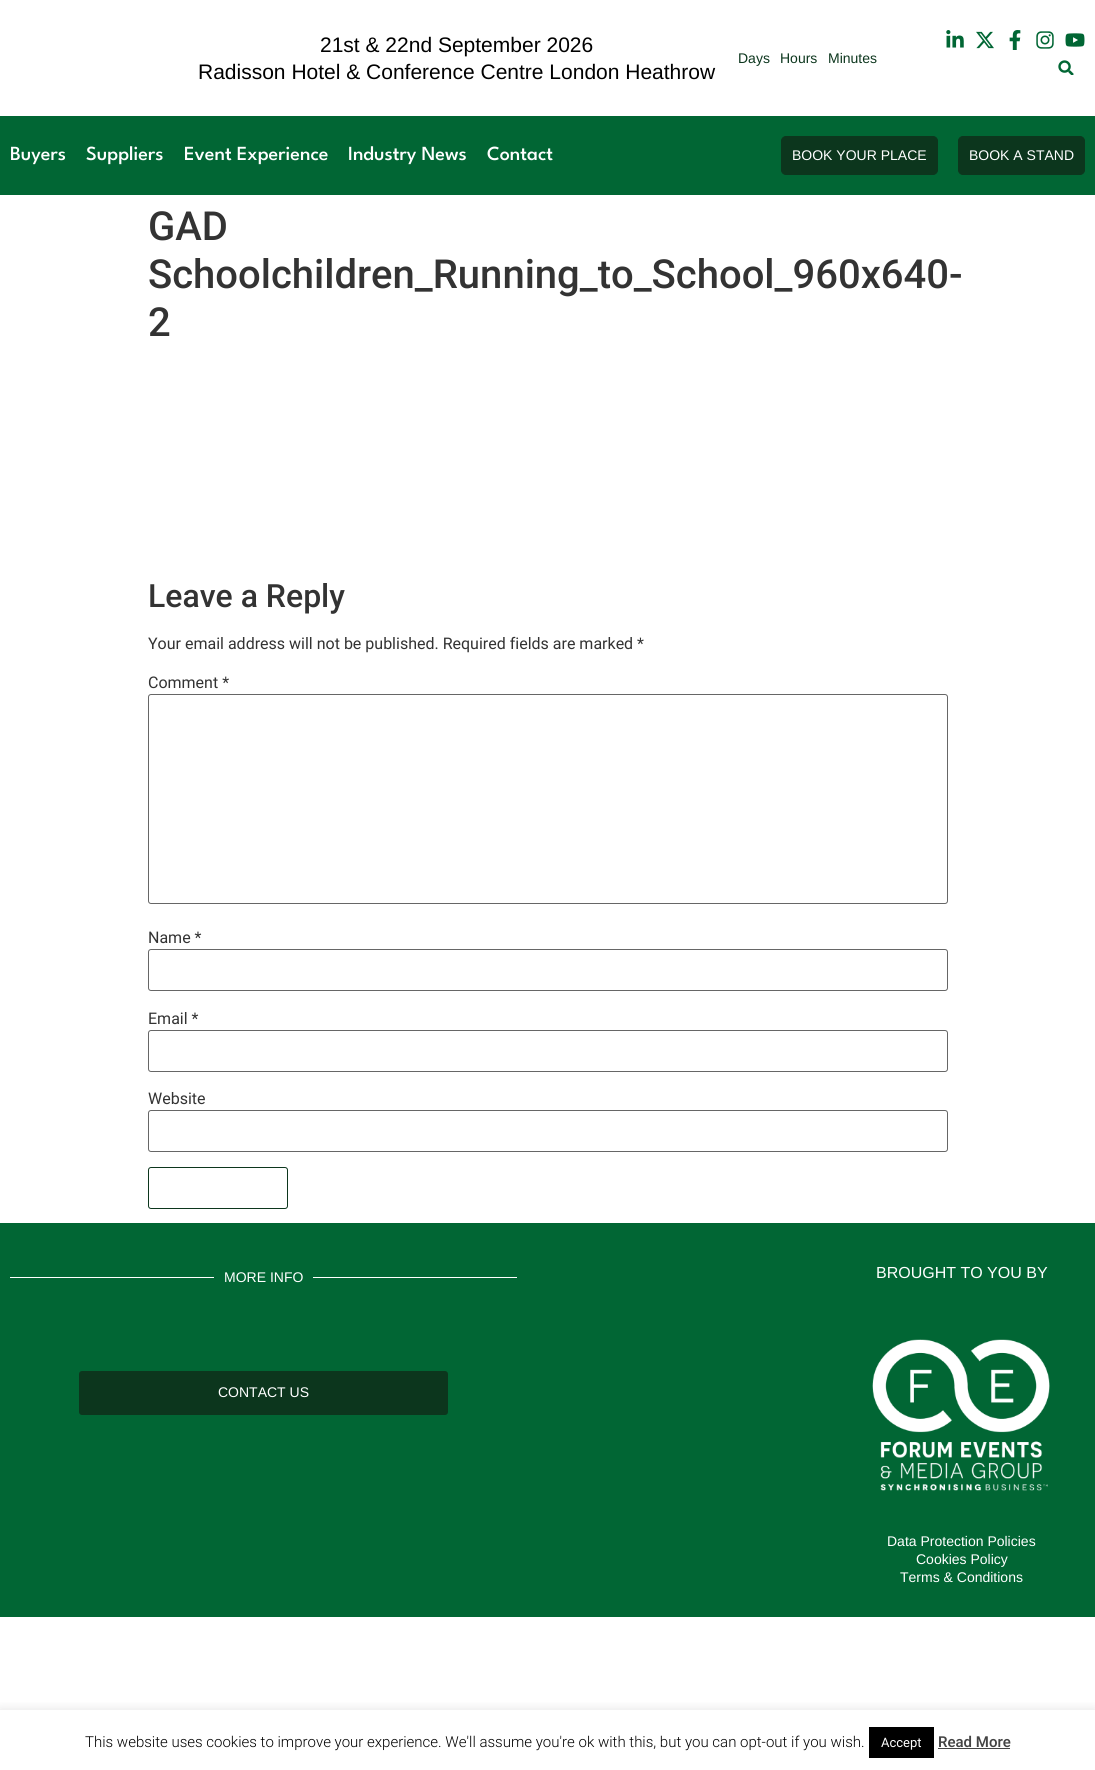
import math
import cairo



def rounded_rect(context, x, y, w, h, r):
    context.new_sub_path()
    for i, (u, v) in enumerate([(x + w - r, y + h - r), (x + r, y + h - r), (x + r, y + r), (x + w - r, y + r)]):
        context.arc(u, v, r, i * math.pi / 2, (i + 1) * math.pi / 2)
    context.close_path()


def draw_shadow(context, x, y, w, h, r, blur, alpha):
    context.push_group_with_content(cairo.Content.ALPHA)
    context.set_operator(cairo.Operator.SOURCE)
    for i in range(15, -16, -2):
        e = blur * i / 6
        if min(w, h) + 2 * e > 0:
            context.set_source_rgba(0, 0, 0, alpha * math.erfc((i - 1) / 8.5) / 2)
            rounded_rect(context, x - e, y - e, w + 2 * e, h + 2 * e, max(0, min(r + e + blur * .6, min(w, h) / 2 + e)))
            context.fill()
    context.mask(context.pop_group())


def draw_image(context, path, x, y, w, h):
    context.save()
    context.set_source_surface(cairo.ImageSurface.create_from_png(path), x, y)
    context.rectangle(x, y, w, h)
    context.fill()
    context.restore()


def draw(context):
    context.set_source_rgb(1, 1, 1)
    context.paint()
    draw_image(context, "images/1.png", 946, 30, 18, 18)
    draw_image(context, "images/2.png", 976, 31, 18, 18)
    draw_image(context, "images/3.png", 1009, 30, 12, 20)
    draw_image(context, "images/4.png", 1036, 31, 18, 18)
    draw_image(context, "images/5.png", 1065, 33, 20, 14)
    draw_image(context, "images/6.png", 1058, 60, 16, 15)
    context.set_source_rgb(1 / 255, 102 / 255, 52 / 255)
    context.rectangle(0, 116, 1095, 79)
    context.fill()
    context.set_source_rgb(12 / 255, 54 / 255, 29 / 255)
    rounded_rect(context, 781.5, 136.5, 156, 38, 4.5)
    context.fill_preserve()
    context.set_line_width(1)
    context.stroke()
    rounded_rect(context, 958.5, 136.5, 126, 38, 4.5)
    context.fill_preserve()
    context.stroke()
    rounded_rect(context, 148.5, 694.5, 799, 209, 2.5)
    context.set_source_rgb(102 / 255, 102 / 255, 102 / 255)
    context.stroke()
    rounded_rect(context, 148.5, 949.5, 799, 41, 2.5)
    context.stroke()
    rounded_rect(context, 148.5, 1030.5, 799, 41, 2.5)
    context.stroke()
    rounded_rect(context, 148.5, 1110.5, 799, 41, 2.5)
    context.stroke()
    rounded_rect(context, 148.5, 1167.5, 139, 41, 2.5)
    context.set_source_rgb(12 / 255, 54 / 255, 29 / 255)
    context.stroke()
    context.set_source_rgb(1 / 255, 102 / 255, 52 / 255)
    context.rectangle(0, 1223, 1095, 394)
    context.fill()
    context.set_source_rgb(1, 1, 1)
    context.rectangle(10, 1277, 204, 1)
    context.fill()
    context.rectangle(313, 1277, 204, 1)
    context.fill()
    context.set_source_rgb(12 / 255, 54 / 255, 29 / 255)
    rounded_rect(context, 79, 1371, 369, 44, 3)
    context.fill()
    draw_image(context, "images/7.png", 872, 1339, 178, 152)
    context.save()
    context.rectangle(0, 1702, 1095, 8)
    context.clip()
    context.set_source_rgb(172 / 255, 171 / 255, 171 / 255)
    draw_shadow(context, 0, 1709, 1095, 60, 0, 5, 0.3)
    context.restore()
    context.set_source_rgb(0, 0, 0)
    context.rectangle(869, 1727, 65, 31)
    context.fill()
    context.set_source_rgb(68 / 255, 68 / 255, 68 / 255)
    context.rectangle(938, 1748, 72, 1)
    context.fill()
    context.select_font_face("Liberation Sans")
    context.set_font_size(21)
    context.set_source_rgb(0, 0, 0)
    context.move_to(320, 52)
    context.show_text("21st & 22nd September 2026")
    context.move_to(198, 79)
    context.show_text("Radisson Hotel & Conference Centre London Heathrow")
    context.set_font_size(14)
    context.set_source_rgb(12 / 255, 54 / 255, 29 / 255)
    context.move_to(738, 63)
    context.show_text("Days")
    context.move_to(780, 63)
    context.show_text("Hours")
    context.move_to(828, 63)
    context.show_text("Minutes")
    context.select_font_face("League Spartan Medium")
    context.set_font_size(20)
    context.set_source_rgb(1, 1, 1)
    context.move_to(10, 160)
    context.show_text("Buyers")
    context.move_to(86, 160)
    context.show_text("Suppliers")
    context.move_to(184, 160)
    context.show_text("Event Experience")
    context.move_to(348, 160)
    context.show_text("Industry News")
    context.move_to(487, 160)
    context.show_text("Contact")
    context.select_font_face("Liberation Sans")
    context.set_font_size(14)
    context.move_to(792, 160)
    context.show_text("BOOK YOUR PLACE")
    context.move_to(969, 160)
    context.show_text("BOOK A STAND")
    context.select_font_face("Roboto Medium")
    context.set_font_size(40)
    context.set_source_rgb(51 / 255, 51 / 255, 51 / 255)
    context.move_to(148, 240)
    context.show_text("GAD")
    context.move_to(148, 288)
    context.show_text("Schoolchildren_Running_to_School_960x640-")
    context.move_to(148, 336)
    context.show_text("2")
    context.set_font_size(32)
    context.move_to(148, 607)
    context.show_text("Leave a Reply")
    context.select_font_face("Roboto")
    context.set_font_size(16)
    context.move_to(148, 649)
    context.show_text("Your email address will not be published. Required fields are marked *")
    context.move_to(148, 688)
    context.show_text("Comment *")
    context.move_to(148, 943)
    context.show_text("Name *")
    context.move_to(148, 1024)
    context.show_text("Email *")
    context.move_to(148, 1104)
    context.show_text("Website")
    context.select_font_face("Liberation Sans")
    context.set_font_size(14)
    context.set_source_rgb(1, 1, 1)
    context.move_to(224, 1282)
    context.show_text("MORE INFO")
    context.move_to(218, 1397)
    context.show_text("CONTACT US")
    context.set_font_size(16)
    context.move_to(876, 1278)
    context.show_text("BROUGHT TO YOU BY")
    context.set_font_size(14)
    context.move_to(887, 1546)
    context.show_text("Data Protection Policies")
    context.move_to(916, 1564)
    context.show_text("Cookies Policy")
    context.move_to(900, 1582)
    context.show_text("Terms & Conditions")
    context.select_font_face("Roboto Light")
    context.set_font_size(15)
    context.set_source_rgb(0, 0, 0)
    context.move_to(85, 1747)
    context.show_text("This website uses cookies to improve your experience. We'll assume you're ok with this, but you can opt-out if you wish.")
    context.select_font_face("Roboto")
    context.set_font_size(13)
    context.set_source_rgb(1, 1, 1)
    context.move_to(881, 1747)
    context.show_text("Accept")
    context.select_font_face("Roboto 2 Medium")
    context.set_font_size(15)
    context.set_source_rgb(68 / 255, 68 / 255, 68 / 255)
    context.move_to(938, 1747)
    context.show_text("Read More")


surface = cairo.ImageSurface(cairo.Format.RGB24, 1095, 1770)
context = cairo.Context(surface)
options = cairo.FontOptions()
options.set_hint_metrics(cairo.HintMetrics.OFF)
options.set_hint_style(cairo.HintStyle.NONE)
context.set_font_options(options)
context.set_miter_limit(4)
draw(context)
surface.write_to_png("out.png")
